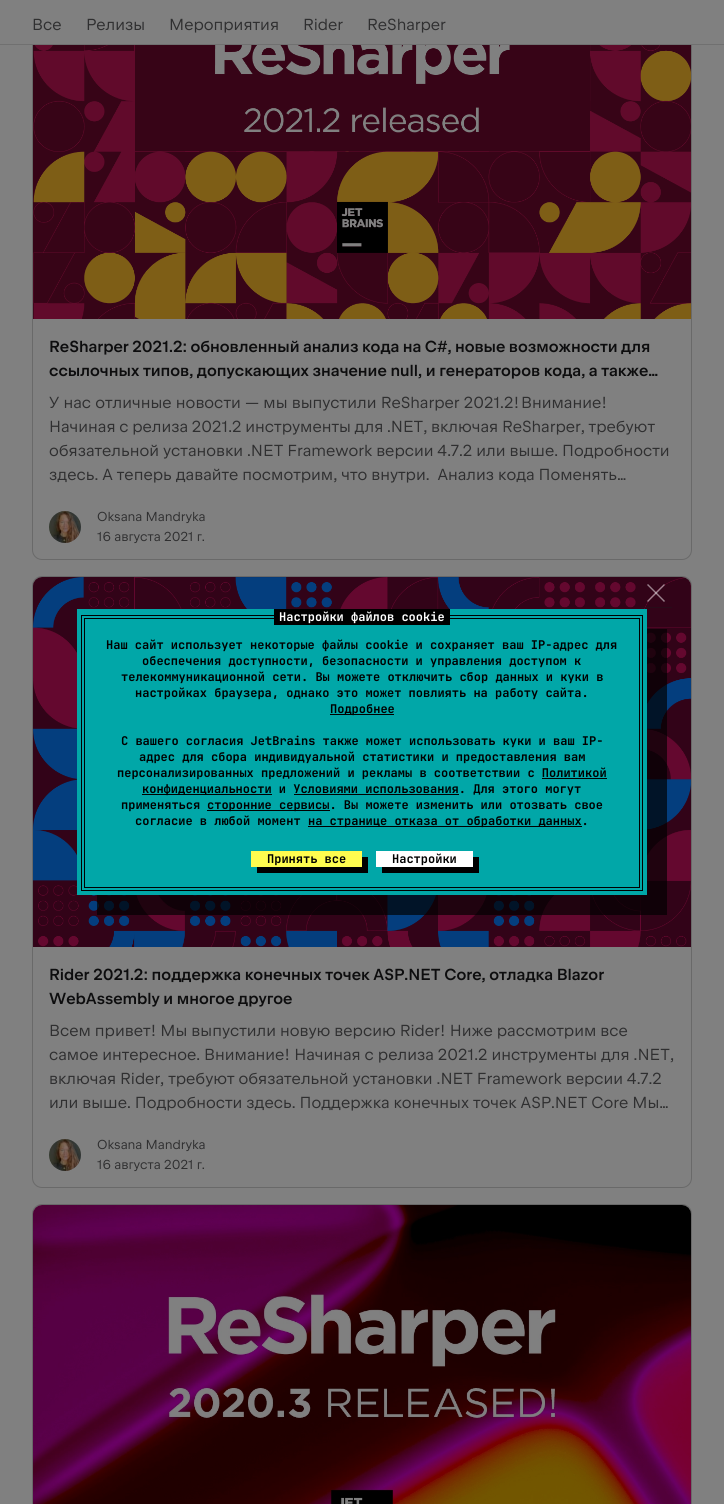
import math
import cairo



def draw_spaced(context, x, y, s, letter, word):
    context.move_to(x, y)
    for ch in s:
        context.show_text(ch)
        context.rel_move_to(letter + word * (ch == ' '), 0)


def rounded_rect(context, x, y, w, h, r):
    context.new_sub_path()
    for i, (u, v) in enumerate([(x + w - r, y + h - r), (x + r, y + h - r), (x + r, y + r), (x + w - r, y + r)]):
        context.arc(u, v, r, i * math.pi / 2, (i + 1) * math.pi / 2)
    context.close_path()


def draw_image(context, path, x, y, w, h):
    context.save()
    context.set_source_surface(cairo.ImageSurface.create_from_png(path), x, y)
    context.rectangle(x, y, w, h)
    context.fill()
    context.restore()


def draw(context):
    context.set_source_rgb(128 / 255, 128 / 255, 128 / 255)
    context.paint()
    rounded_rect(context, 32.5, -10.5, 659, 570, 9.5)
    context.set_source_rgb(105 / 255, 105 / 255, 105 / 255)
    context.set_line_width(1)
    context.stroke()
    context.set_source_rgb(128 / 255, 128 / 255, 128 / 255)
    context.rectangle(32, 0, 660, 44)
    context.fill()
    context.set_source_rgb(112 / 255, 112 / 255, 112 / 255)
    context.rectangle(0, 44, 724, 1)
    context.fill()
    draw_image(context, "images/1.png", 33, 45, 658, 274)
    draw_image(context, "images/2.png", 49, 511, 32, 32)
    rounded_rect(context, 32.5, 576.5, 659, 611, 9.5)
    context.set_source_rgb(105 / 255, 105 / 255, 105 / 255)
    context.stroke()
    draw_image(context, "images/3.png", 33, 577, 658, 370)
    draw_image(context, "images/2.png", 49, 1139, 32, 32)
    rounded_rect(context, 32.5, 1204.5, 659, 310, 9.5)
    context.stroke()
    draw_image(context, "images/4.png", 33, 1205, 658, 299)
    context.set_source_rgba(0, 0, 0, 0.68)
    context.new_path()
    context.move_to(97, 895)
    context.line_to(97, 915)
    context.line_to(667, 915)
    context.line_to(667, 629)
    context.line_to(647, 629)
    context.line_to(647, 895)
    context.close_path()
    context.fill()
    context.set_source_rgb(1 / 255, 167 / 255, 168 / 255)
    context.rectangle(77, 609, 570, 286)
    context.fill()
    context.set_source_rgba(25 / 255, 25 / 255, 28 / 255, 0.4)
    context.rectangle(641, 607, 31, 1)
    context.fill()
    context.set_source_rgba(1, 1, 1, 0.5)
    context.new_path()
    context.move_to(647, 601)
    context.line_to(664, 584)
    context.line_to(665, 585)
    context.line_to(648, 602)
    context.close_path()
    context.fill()
    context.new_path()
    context.move_to(648, 584)
    context.line_to(665, 601)
    context.line_to(664, 602)
    context.line_to(647, 585)
    context.close_path()
    context.fill()
    context.set_source_rgb(0, 0, 0)
    context.rectangle(84, 618, 556, 1)
    context.fill()
    context.rectangle(639, 618, 1, 270)
    context.fill()
    context.rectangle(84, 618, 1, 233)
    context.fill()
    context.rectangle(81, 615, 562, 1)
    context.fill()
    context.rectangle(274, 609, 176, 16)
    context.fill()
    context.rectangle(642, 615, 1, 276)
    context.fill()
    context.rectangle(81, 615, 1, 235)
    context.fill()
    context.rectangle(330, 714, 64, 1)
    context.fill()
    context.rectangle(542, 778, 65, 1)
    context.fill()
    context.rectangle(142, 794, 130, 1)
    context.fill()
    context.rectangle(294, 794, 165, 1)
    context.fill()
    context.rectangle(207, 810, 123, 1)
    context.fill()
    context.rectangle(308, 826, 274, 1)
    context.fill()
    context.rectangle(84, 887, 556, 1)
    context.fill()
    context.rectangle(84, 851, 1, 37)
    context.fill()
    context.rectangle(81, 890, 562, 1)
    context.fill()
    context.rectangle(81, 850, 1, 41)
    context.fill()
    context.new_path()
    context.move_to(257, 867)
    context.line_to(257, 873)
    context.line_to(368, 873)
    context.line_to(368, 857)
    context.line_to(362, 857)
    context.line_to(362, 867)
    context.close_path()
    context.fill()
    context.set_source_rgb(254 / 255, 252 / 255, 79 / 255)
    context.rectangle(251, 851, 111, 16)
    context.fill()
    context.set_source_rgb(0, 0, 0)
    context.new_path()
    context.move_to(382, 867)
    context.line_to(382, 873)
    context.line_to(479, 873)
    context.line_to(479, 857)
    context.line_to(473, 857)
    context.line_to(473, 867)
    context.close_path()
    context.fill()
    context.set_source_rgb(1, 1, 1)
    context.rectangle(376, 851, 97, 16)
    context.fill()
    context.select_font_face("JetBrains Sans")
    context.set_font_size(16)
    context.set_source_rgb(47 / 255, 47 / 255, 48 / 255)
    context.move_to(32, 30)
    context.show_text("Все")
    context.move_to(86, 30)
    context.show_text("Релизы")
    context.move_to(169, 30)
    context.show_text("Мероприятия")
    context.move_to(303, 30)
    context.show_text("Rider")
    context.move_to(367, 30)
    context.show_text("ReSharper")
    context.select_font_face("JetBrains Sans SemiBold")
    context.set_source_rgb(13 / 255, 13 / 255, 14 / 255)
    draw_spaced(context, 49, 352, "ReSharper 2021.2: обновленный анализ кода на C#, новые возможности для", 0, -0.25)
    context.move_to(49, 376)
    context.show_text("ссылочных типов, допускающих значение null, и генераторов кода, а также…")
    context.select_font_face("JetBrains Sans")
    context.set_source_rgb(47 / 255, 47 / 255, 48 / 255)
    draw_spaced(context, 49, 408, "У нас отличные новости — мы выпустили ReSharper 2021.2!", 0, 0.25)
    context.move_to(521, 408)
    context.show_text("Внимание!")
    draw_spaced(context, 49, 432, "Начиная с релиза 2021.2 инструменты для .NET, включая ReSharper, требуют", 0, -0.25)
    context.move_to(49, 456)
    context.show_text("обязательной установки .NET Framework версии 4.7.2 или выше. Подробности")
    context.move_to(49, 480)
    context.show_text("здесь. А теперь давайте посмотрим, что внутри.  Анализ кода Поменять…")
    context.set_font_size(13)
    context.move_to(97, 521)
    context.show_text("Oksana Mandryka")
    context.move_to(97, 541)
    context.show_text("16 августа 2021 г.")
    context.select_font_face("JetBrains Sans SemiBold")
    context.set_font_size(16)
    context.set_source_rgb(13 / 255, 13 / 255, 14 / 255)
    context.move_to(49, 980)
    context.show_text("Rider 2021.2: поддержка конечных точек ASP.NET Core, отладка Blazor")
    context.move_to(49, 1004)
    context.show_text("WebAssembly и многое другое")
    context.select_font_face("JetBrains Sans")
    context.set_source_rgb(47 / 255, 47 / 255, 48 / 255)
    context.move_to(49, 1036)
    context.show_text("Всем привет! Мы выпустили новую версию Rider! Ниже рассмотрим все")
    context.move_to(49, 1060)
    context.show_text("самое интересное. Внимание! Начиная с релиза 2021.2 инструменты для .NET,")
    context.move_to(49, 1084)
    context.show_text("включая Rider, требуют обязательной установки .NET Framework версии 4.7.2")
    context.move_to(49, 1108)
    context.show_text("или выше. Подробности здесь. Поддержка конечных точек ASP.NET Core Мы…")
    context.set_font_size(13)
    context.move_to(97, 1149)
    context.show_text("Oksana Mandryka")
    context.move_to(97, 1169)
    context.show_text("16 августа 2021 г.")
    context.select_font_face("JetBrains Mono", cairo.FontSlant.NORMAL, cairo.FontWeight.BOLD)
    context.set_font_size(12)
    context.set_source_rgb(1, 1, 1)
    context.move_to(279, 621)
    context.show_text("Настройки файлов cookie")
    context.set_source_rgb(0, 0, 0)
    context.move_to(106, 649)
    context.show_text("Наш сайт использует некоторые файлы cookie и сохраняет ваш IP-адрес для")
    context.move_to(142, 665)
    context.show_text("обеспечения доступности, безопасности и управления доступом к")
    context.move_to(121, 681)
    context.show_text("телекоммуникационной сети. Вы можете отключить сбор данных и куки в")
    context.move_to(135, 697)
    context.show_text("настройках браузера, однако это может повлиять на работу сайта.")
    context.move_to(330, 713)
    context.show_text("Подробнее")
    context.move_to(121, 745)
    context.show_text("С вашего согласия JetBrains также может использовать куки и ваш IP-")
    context.move_to(139, 761)
    context.show_text("адрес для сбора индивидуальной статистики и предоставления вам")
    context.move_to(117, 777)
    context.show_text("персонализированных предложений и рекламы в соответствии с Политикой")
    context.move_to(142, 793)
    context.show_text("конфиденциальности и Условиями использования. Для этого могут")
    context.move_to(121, 809)
    context.show_text("применяться")
    context.move_to(207, 809)
    context.show_text("сторонние сервисы. Вы можете изменить или отозвать свое")
    context.move_to(135, 825)
    context.show_text("согласие в любой момент")
    context.move_to(308, 825)
    context.show_text("на странице отказа от обработки данных.")
    context.move_to(267, 863)
    context.show_text("Принять все")
    context.move_to(392, 863)
    context.show_text("Настройки")


surface = cairo.ImageSurface(cairo.Format.RGB24, 724, 1504)
context = cairo.Context(surface)
options = cairo.FontOptions()
options.set_hint_metrics(cairo.HintMetrics.OFF)
options.set_hint_style(cairo.HintStyle.NONE)
context.set_font_options(options)
context.set_miter_limit(4)
draw(context)
surface.write_to_png("out.png")
